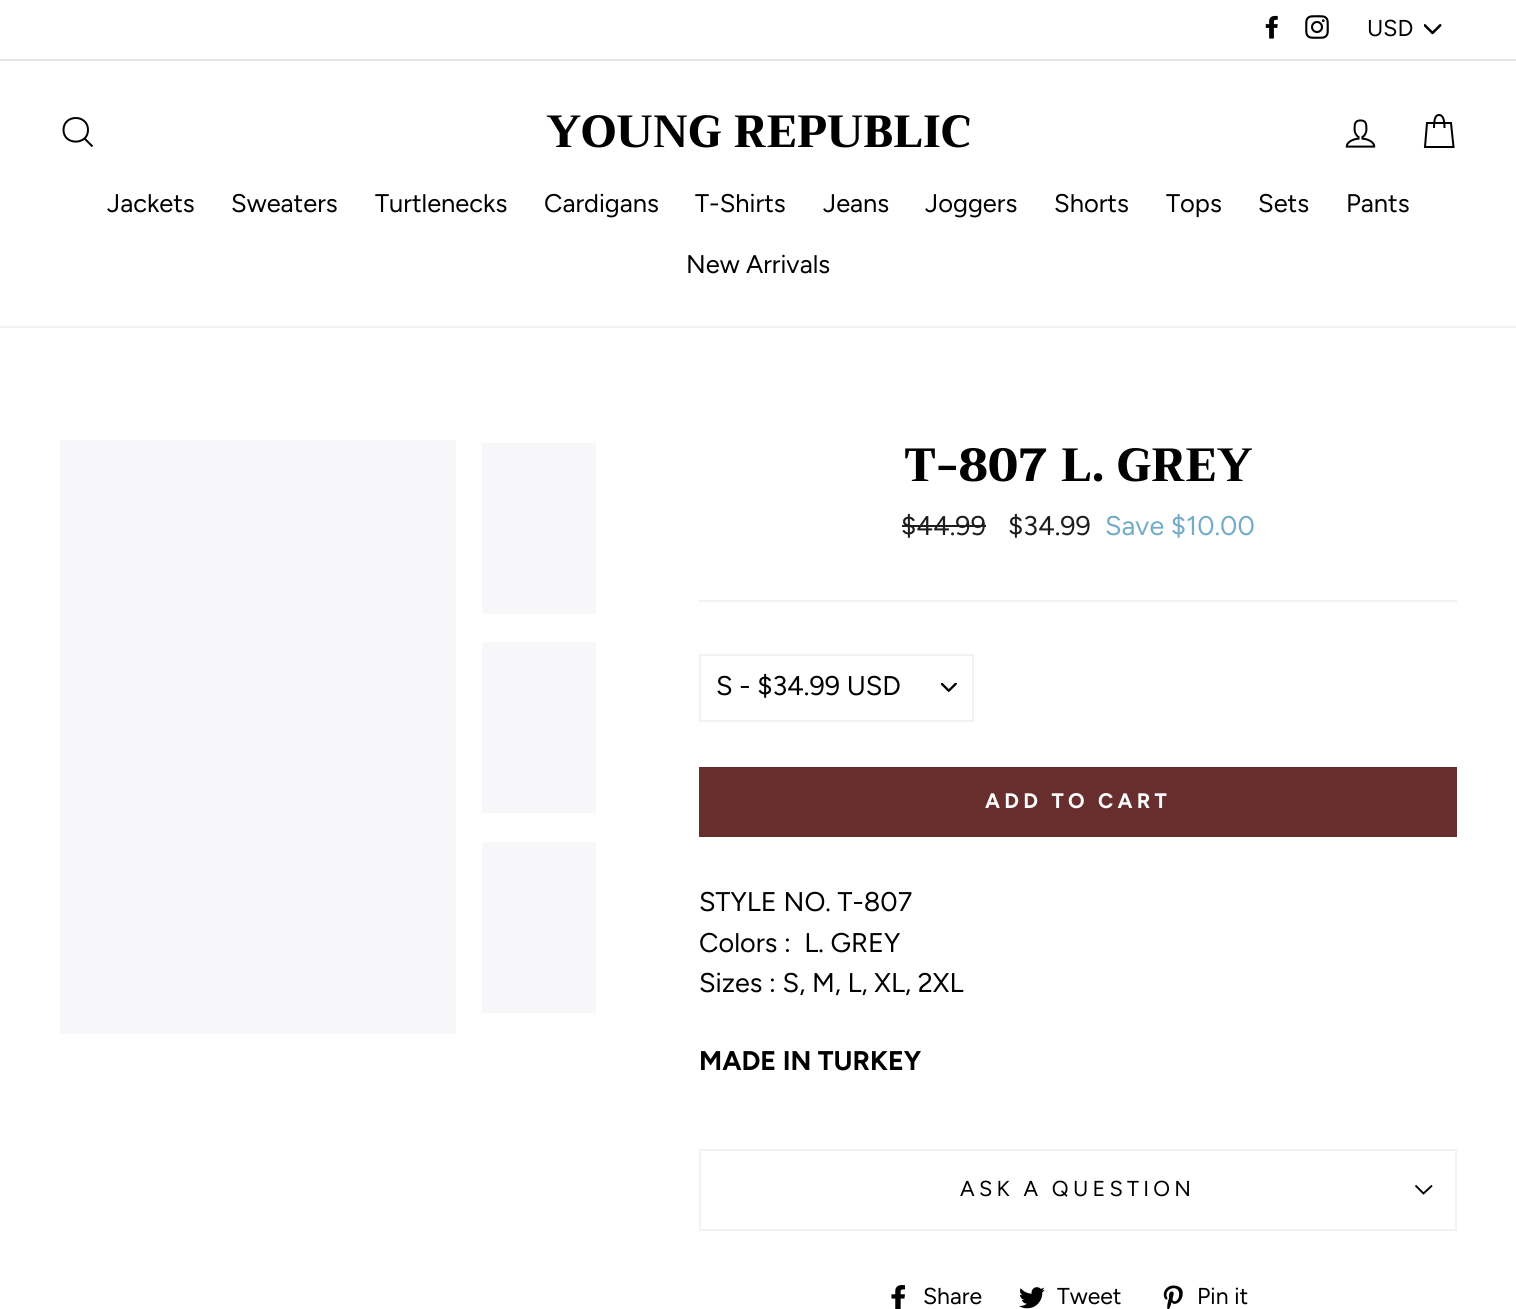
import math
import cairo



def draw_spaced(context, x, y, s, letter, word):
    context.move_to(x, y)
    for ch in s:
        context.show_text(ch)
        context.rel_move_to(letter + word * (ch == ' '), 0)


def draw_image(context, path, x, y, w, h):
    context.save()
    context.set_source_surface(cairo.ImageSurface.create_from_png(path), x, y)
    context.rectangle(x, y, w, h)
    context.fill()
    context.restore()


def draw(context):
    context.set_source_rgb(1, 1, 1)
    context.paint()
    draw_image(context, "images/1.png", 1265, 15, 13, 24)
    draw_image(context, "images/2.png", 1305, 15, 24, 24)
    draw_image(context, "images/3.png", 1424, 24, 18, 11)
    context.set_source_rgb(230 / 255, 230 / 255, 230 / 255)
    context.rectangle(0, 59, 1516, 2)
    context.fill()
    context.set_source_rgb(242 / 255, 242 / 255, 242 / 255)
    context.rectangle(0, 326, 1516, 2)
    context.fill()
    context.new_path()
    context.move_to(88, 130)
    context.curve_to(88, 145.5, 63.5, 145.5, 63.5, 130)
    context.curve_to(63.5, 114, 88, 114, 88, 130)
    context.close_path()
    context.move_to(92.5, 146.5)
    context.line_to(84.5, 138.5)
    context.set_source_rgb(0, 0, 0)
    context.stroke()
    draw_image(context, "images/4.png", 1345, 119, 31, 29)
    context.new_path()
    context.move_to(1434, 128)
    context.curve_to(1434, 117.5, 1436, 115, 1439, 115)
    context.curve_to(1442, 115, 1444.5, 117.5, 1444.5, 128)
    context.move_to(1427, 123)
    context.line_to(1451, 123)
    context.line_to(1453.5, 147)
    context.line_to(1425, 147)
    context.close_path()
    context.stroke()
    context.set_source_rgb(247 / 255, 247 / 255, 249 / 255)
    context.rectangle(60, 440, 396, 594)
    context.fill()
    context.rectangle(482, 443, 114, 171)
    context.fill()
    context.rectangle(482, 642, 114, 171)
    context.fill()
    context.rectangle(482, 842, 114, 171)
    context.fill()
    context.set_source_rgb(28 / 255, 29 / 255, 29 / 255)
    context.rectangle(902, 525, 84, 2)
    context.fill()
    context.set_source_rgb(242 / 255, 242 / 255, 242 / 255)
    context.rectangle(699, 600, 758, 2)
    context.fill()
    draw_image(context, "images/5.png", 941, 683, 16, 9)
    context.rectangle(700, 655, 273, 66)
    context.stroke()
    context.set_source_rgb(104 / 255, 45 / 255, 45 / 255)
    context.rectangle(699, 767, 758, 70)
    context.fill()
    context.set_source_rgb(242 / 255, 242 / 255, 242 / 255)
    context.rectangle(699, 1229, 758, 2)
    context.fill()
    context.rectangle(699, 1149, 758, 2)
    context.fill()
    context.rectangle(1455, 1149, 2, 80)
    context.fill()
    context.rectangle(699, 1149, 2, 80)
    context.fill()
    context.new_path()
    context.move_to(1415.5, 1185.5)
    context.line_to(1423.5, 1193.5)
    context.line_to(1432, 1185.5)
    context.set_source_rgb(0, 0, 0)
    context.set_line_width(1.9)
    context.stroke()
    draw_image(context, "images/6.png", 891, 1285, 14, 24)
    draw_image(context, "images/7.png", 1019, 1287, 26, 22)
    draw_image(context, "images/8.png", 1163, 1285, 20, 24)
    context.select_font_face("Figtree")
    context.set_font_size(23)
    context.move_to(1367, 36)
    context.show_text("USD")
    context.select_font_face("Trirong ExtraBold")
    context.set_font_size(45)
    context.move_to(546, 147)
    context.show_text("YOUNG REPUBLIC")
    context.select_font_face("Figtree")
    context.set_font_size(25.5)
    context.move_to(107, 212)
    context.show_text("Jackets")
    context.move_to(231, 212)
    context.show_text("Sweaters")
    context.move_to(375, 212)
    context.show_text("Turtlenecks")
    context.move_to(544, 212)
    context.show_text("Cardigans")
    context.move_to(695, 212)
    context.show_text("T-Shirts")
    context.move_to(823, 212)
    context.show_text("Jeans")
    context.move_to(925, 212)
    context.show_text("Joggers")
    context.move_to(1054, 212)
    context.show_text("Shorts")
    context.move_to(1166, 212)
    context.show_text("Tops")
    context.move_to(1258, 212)
    context.show_text("Sets")
    context.move_to(1346, 212)
    context.show_text("Pants")
    context.move_to(686, 273)
    context.show_text("New Arrivals")
    context.select_font_face("Trirong ExtraBold")
    context.set_font_size(46.5)
    context.move_to(904, 481)
    context.show_text("T-807 L. GREY")
    context.select_font_face("Figtree")
    context.set_font_size(27)
    context.set_source_rgb(28 / 255, 29 / 255, 29 / 255)
    context.move_to(901, 535)
    context.show_text("$44.99")
    context.move_to(1008, 535)
    context.show_text("$34.99")
    context.set_source_rgb(114 / 255, 172 / 255, 199 / 255)
    context.move_to(1105, 535)
    context.show_text("Save $10.00")
    context.set_source_rgb(0, 0, 0)
    context.move_to(716, 695)
    context.show_text("S - $34.99 USD")
    context.select_font_face("Figtree", cairo.FontSlant.NORMAL, cairo.FontWeight.BOLD)
    context.set_font_size(21)
    context.set_source_rgb(1, 1, 1)
    draw_spaced(context, 985, 808, "ADD TO CART", 4.25, 0)
    context.select_font_face("Figtree")
    context.set_font_size(27)
    context.set_source_rgb(0, 0, 0)
    context.move_to(699, 911)
    context.show_text("STYLE NO. T-807")
    context.move_to(699, 952)
    context.show_text("Colors :  L. GREY")
    context.move_to(699, 992)
    context.show_text("Sizes : S, M, L, XL, 2XL")
    context.select_font_face("Figtree", cairo.FontSlant.NORMAL, cairo.FontWeight.BOLD)
    context.move_to(699, 1070)
    context.show_text("MADE IN TURKEY")
    context.select_font_face("Figtree")
    context.set_font_size(21.6)
    draw_spaced(context, 960, 1196, "ASK A QUESTION", 4.25, 0)
    context.set_font_size(23)
    context.move_to(923, 1304)
    context.show_text("Share")
    context.move_to(1057, 1304)
    context.show_text("Tweet")
    context.move_to(1197, 1304)
    context.show_text("Pin it")


surface = cairo.ImageSurface(cairo.Format.RGB24, 1516, 1309)
context = cairo.Context(surface)
options = cairo.FontOptions()
options.set_hint_metrics(cairo.HintMetrics.OFF)
options.set_hint_style(cairo.HintStyle.NONE)
context.set_font_options(options)
context.set_miter_limit(4)
draw(context)
surface.write_to_png("out.png")
